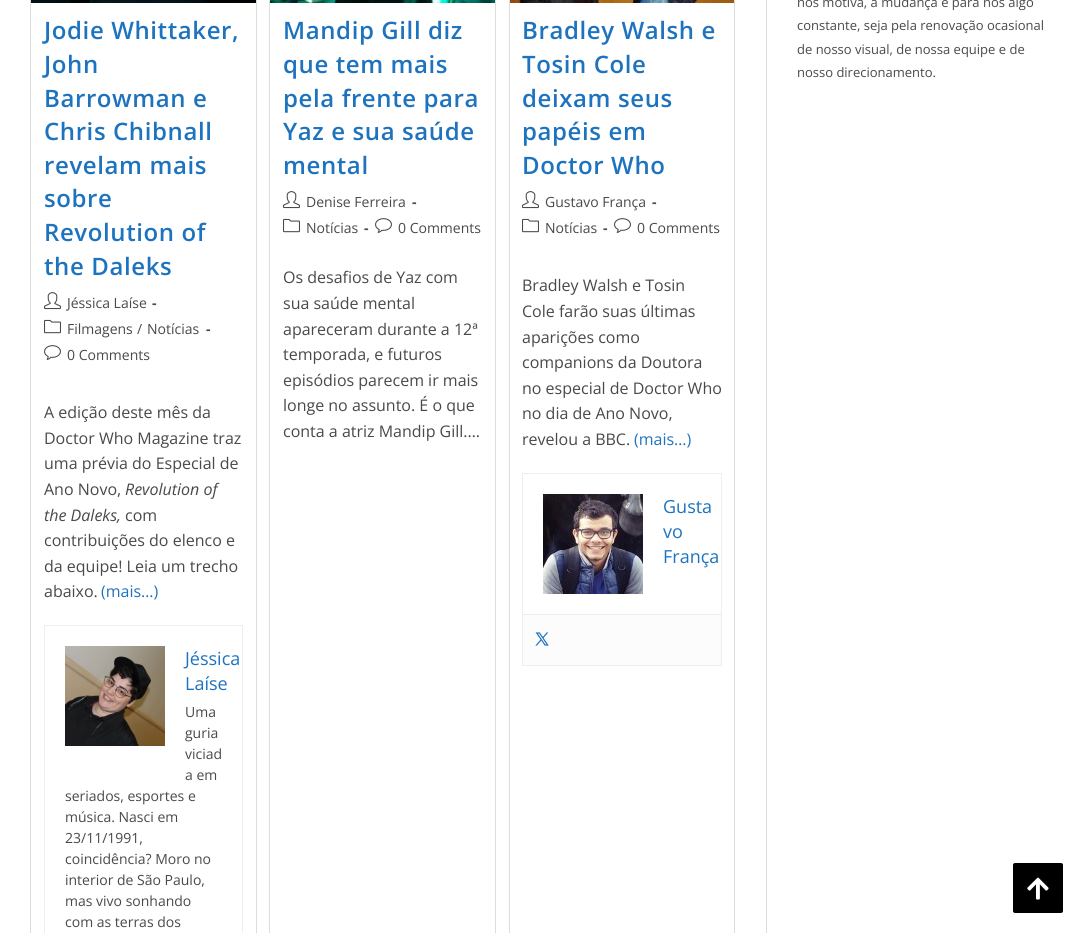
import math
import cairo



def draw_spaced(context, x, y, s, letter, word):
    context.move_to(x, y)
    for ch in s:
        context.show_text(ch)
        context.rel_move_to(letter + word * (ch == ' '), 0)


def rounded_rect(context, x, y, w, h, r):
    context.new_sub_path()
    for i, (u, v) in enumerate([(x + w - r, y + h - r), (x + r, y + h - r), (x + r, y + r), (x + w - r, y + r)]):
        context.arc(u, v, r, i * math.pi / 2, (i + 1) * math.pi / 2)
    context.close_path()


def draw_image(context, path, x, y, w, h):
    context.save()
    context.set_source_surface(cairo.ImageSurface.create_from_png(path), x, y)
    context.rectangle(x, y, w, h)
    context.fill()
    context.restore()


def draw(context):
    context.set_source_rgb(1, 1, 1)
    context.paint()
    context.set_source_rgb(221 / 255, 221 / 255, 221 / 255)
    context.rectangle(766, 0, 1, 933)
    context.fill()
    context.rectangle(30.5, -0.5, 226, 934)
    context.set_line_width(1)
    context.stroke()
    draw_image(context, "images/1.png", 31, 0, 225, 3)
    draw_image(context, "images/2.png", 44, 292, 17, 18)
    draw_image(context, "images/3.png", 44, 319, 17, 15)
    draw_image(context, "images/4.png", 44, 345, 17, 15)
    context.rectangle(44.5, 625.5, 198, 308)
    context.set_source_rgb(238 / 255, 238 / 255, 238 / 255)
    context.stroke()
    draw_image(context, "images/5.png", 65, 646, 100, 100)
    context.rectangle(269.5, -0.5, 226, 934)
    context.set_source_rgb(221 / 255, 221 / 255, 221 / 255)
    context.stroke()
    draw_image(context, "images/6.png", 270, 0, 225, 3)
    draw_image(context, "images/2.png", 283, 191, 17, 18)
    draw_image(context, "images/3.png", 283, 218, 17, 15)
    draw_image(context, "images/4.png", 375, 218, 17, 15)
    context.rectangle(509.5, -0.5, 225, 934)
    context.stroke()
    draw_image(context, "images/7.png", 510, 0, 224, 3)
    draw_image(context, "images/2.png", 522, 191, 17, 18)
    draw_image(context, "images/3.png", 522, 218, 17, 15)
    draw_image(context, "images/4.png", 614, 218, 17, 15)
    context.rectangle(522.5, 473.5, 199, 192)
    context.set_source_rgb(238 / 255, 238 / 255, 238 / 255)
    context.stroke()
    draw_image(context, "images/8.png", 543, 494, 100, 100)
    context.set_source_rgb(252 / 255, 252 / 255, 252 / 255)
    context.rectangle(523, 615, 198, 50)
    context.fill()
    context.set_source_rgb(238 / 255, 238 / 255, 238 / 255)
    context.rectangle(523, 614, 198, 1)
    context.fill()
    draw_image(context, "images/9.png", 535, 632, 14, 14)
    context.set_source_rgb(0, 0, 0)
    rounded_rect(context, 1013, 863, 50, 50, 2)
    context.fill()
    draw_image(context, "images/10.png", 1027, 877, 22, 23)
    context.select_font_face("Open Sans SemiBold")
    context.set_font_size(24)
    context.set_source_rgb(30 / 255, 115 / 255, 190 / 255)
    draw_spaced(context, 44, 39, "Jodie Whittaker,", 0.6, 0)
    draw_spaced(context, 44, 73, "John", 0.6, 0)
    draw_spaced(context, 44, 107, "Barrowman e", 0.6, 0)
    draw_spaced(context, 44, 140, "Chris Chibnall", 0.6, 0)
    draw_spaced(context, 44, 174, "revelam mais", 0.6, 0)
    draw_spaced(context, 44, 207, "sobre", 0.6, 0)
    draw_spaced(context, 44, 241, "Revolution of", 0.6, 0)
    draw_spaced(context, 44, 275, "the Daleks", 0.6, 0)
    context.select_font_face("Open Sans")
    context.set_font_size(14)
    context.set_source_rgb(73 / 255, 73 / 255, 73 / 255)
    context.move_to(67, 308)
    context.show_text("Jéssica Laíse")
    context.select_font_face("Open Sans", cairo.FontSlant.NORMAL, cairo.FontWeight.BOLD)
    context.move_to(152, 308)
    context.show_text("-")
    context.select_font_face("Open Sans")
    context.move_to(67, 334)
    context.show_text("Filmagens")
    context.move_to(137, 334)
    context.show_text("/")
    context.move_to(147, 334)
    context.show_text("Notícias")
    context.select_font_face("Open Sans", cairo.FontSlant.NORMAL, cairo.FontWeight.BOLD)
    context.move_to(206, 334)
    context.show_text("-")
    context.select_font_face("Open Sans")
    context.move_to(67, 360)
    context.show_text("0 Comments")
    context.set_font_size(16)
    context.move_to(44, 418)
    context.show_text("A edição deste mês da")
    context.move_to(44, 444)
    context.show_text("Doctor Who Magazine traz")
    context.move_to(44, 469)
    context.show_text("uma prévia do Especial de")
    context.move_to(44, 495)
    context.show_text("Ano Novo,")
    context.select_font_face("Open Sans", cairo.FontSlant.ITALIC)
    context.move_to(125, 495)
    context.show_text("Revolution of")
    context.move_to(44, 521)
    context.show_text("the Daleks,")
    context.select_font_face("Open Sans")
    context.move_to(125, 521)
    context.show_text("com")
    context.move_to(44, 546)
    context.show_text("contribuições do elenco e")
    context.move_to(44, 572)
    context.show_text("da equipe! Leia um trecho")
    context.move_to(44, 597)
    context.show_text("abaixo.")
    context.set_source_rgb(30 / 255, 115 / 255, 190 / 255)
    context.move_to(101, 597)
    context.show_text("(mais…)")
    context.set_font_size(18)
    context.move_to(185, 665)
    context.show_text("Jéssica")
    context.move_to(185, 690)
    context.show_text("Laíse")
    context.set_font_size(14)
    context.set_source_rgb(73 / 255, 73 / 255, 73 / 255)
    context.move_to(185, 717)
    context.show_text("Uma")
    context.move_to(185, 738)
    context.show_text("guria")
    context.move_to(185, 759)
    context.show_text("viciad")
    context.move_to(185, 780)
    context.show_text("a em")
    context.move_to(65, 801)
    context.show_text("seriados, esportes e")
    context.move_to(65, 822)
    context.show_text("música. Nasci em")
    context.move_to(65, 843)
    context.show_text("23/11/1991,")
    context.move_to(65, 864)
    context.show_text("coincidência? Moro no")
    context.move_to(65, 885)
    context.show_text("interior de São Paulo,")
    context.move_to(65, 906)
    context.show_text("mas vivo sonhando")
    context.move_to(65, 927)
    context.show_text("com as terras dos")
    context.select_font_face("Open Sans SemiBold")
    context.set_font_size(24)
    context.set_source_rgb(30 / 255, 115 / 255, 190 / 255)
    draw_spaced(context, 283, 39, "Mandip Gill diz", 0.6, 0)
    draw_spaced(context, 283, 73, "que tem mais", 0.6, 0)
    draw_spaced(context, 283, 107, "pela frente para", 0.6, 0)
    draw_spaced(context, 283, 140, "Yaz e sua saúde", 0.6, 0)
    draw_spaced(context, 283, 174, "mental", 0.6, 0)
    context.select_font_face("Open Sans")
    context.set_font_size(14)
    context.set_source_rgb(73 / 255, 73 / 255, 73 / 255)
    context.move_to(306, 207)
    context.show_text("Denise Ferreira")
    context.select_font_face("Open Sans", cairo.FontSlant.NORMAL, cairo.FontWeight.BOLD)
    context.move_to(412, 207)
    context.show_text("-")
    context.select_font_face("Open Sans")
    context.move_to(306, 233)
    context.show_text("Notícias")
    context.select_font_face("Open Sans", cairo.FontSlant.NORMAL, cairo.FontWeight.BOLD)
    context.move_to(364, 233)
    context.show_text("-")
    context.select_font_face("Open Sans")
    context.move_to(398, 233)
    context.show_text("0 Comments")
    context.set_font_size(16)
    context.move_to(283, 283)
    context.show_text("Os desafios de Yaz com")
    context.move_to(283, 309)
    context.show_text("sua saúde mental")
    context.move_to(283, 335)
    context.show_text("apareceram durante a 12ª")
    context.move_to(283, 360)
    context.show_text("temporada, e futuros")
    context.move_to(283, 386)
    context.show_text("episódios parecem ir mais")
    context.move_to(283, 411)
    context.show_text("longe no assunto. É o que")
    context.move_to(283, 437)
    context.show_text("conta a atriz Mandip Gill.…")
    context.select_font_face("Open Sans SemiBold")
    context.set_font_size(24)
    context.set_source_rgb(30 / 255, 115 / 255, 190 / 255)
    draw_spaced(context, 522, 39, "Bradley Walsh e", 0.6, 0)
    draw_spaced(context, 522, 73, "Tosin Cole", 0.6, 0)
    draw_spaced(context, 522, 107, "deixam seus", 0.6, 0)
    draw_spaced(context, 522, 140, "papéis em", 0.6, 0)
    draw_spaced(context, 522, 174, "Doctor Who", 0.6, 0)
    context.select_font_face("Open Sans")
    context.set_font_size(14)
    context.set_source_rgb(73 / 255, 73 / 255, 73 / 255)
    context.move_to(545, 207)
    context.show_text("Gustavo França")
    context.select_font_face("Open Sans", cairo.FontSlant.NORMAL, cairo.FontWeight.BOLD)
    context.move_to(652, 207)
    context.show_text("-")
    context.select_font_face("Open Sans")
    context.move_to(545, 233)
    context.show_text("Notícias")
    context.select_font_face("Open Sans", cairo.FontSlant.NORMAL, cairo.FontWeight.BOLD)
    context.move_to(603, 233)
    context.show_text("-")
    context.select_font_face("Open Sans")
    context.move_to(637, 233)
    context.show_text("0 Comments")
    context.set_font_size(16)
    context.move_to(522, 291)
    context.show_text("Bradley Walsh e Tosin")
    context.move_to(522, 317)
    context.show_text("Cole farão suas últimas")
    context.move_to(522, 343)
    context.show_text("aparições como")
    context.move_to(522, 368)
    context.show_text("companions da Doutora")
    context.move_to(522, 394)
    context.show_text("no especial de Doctor Who")
    context.move_to(522, 419)
    context.show_text("no dia de Ano Novo,")
    context.move_to(522, 445)
    context.show_text("revelou a BBC.")
    context.set_source_rgb(30 / 255, 115 / 255, 190 / 255)
    context.move_to(634, 445)
    context.show_text("(mais…)")
    context.set_font_size(18)
    context.move_to(663, 513)
    context.show_text("Gusta")
    context.move_to(663, 538)
    context.show_text("vo")
    context.move_to(663, 563)
    context.show_text("França")
    context.set_font_size(13)
    context.set_source_rgb(73 / 255, 73 / 255, 73 / 255)
    context.move_to(797, 7)
    context.show_text("nos motiva, a mudança é para nós algo")
    context.move_to(797, 30)
    context.show_text("constante, seja pela renovação ocasional")
    context.move_to(797, 54)
    context.show_text("de nosso visual, de nossa equipe e de")
    context.move_to(797, 77)
    context.show_text("nosso direcionamento.")


surface = cairo.ImageSurface(cairo.Format.RGB24, 1083, 933)
context = cairo.Context(surface)
options = cairo.FontOptions()
options.set_hint_metrics(cairo.HintMetrics.OFF)
options.set_hint_style(cairo.HintStyle.NONE)
context.set_font_options(options)
context.set_miter_limit(4)
draw(context)
surface.write_to_png("out.png")
